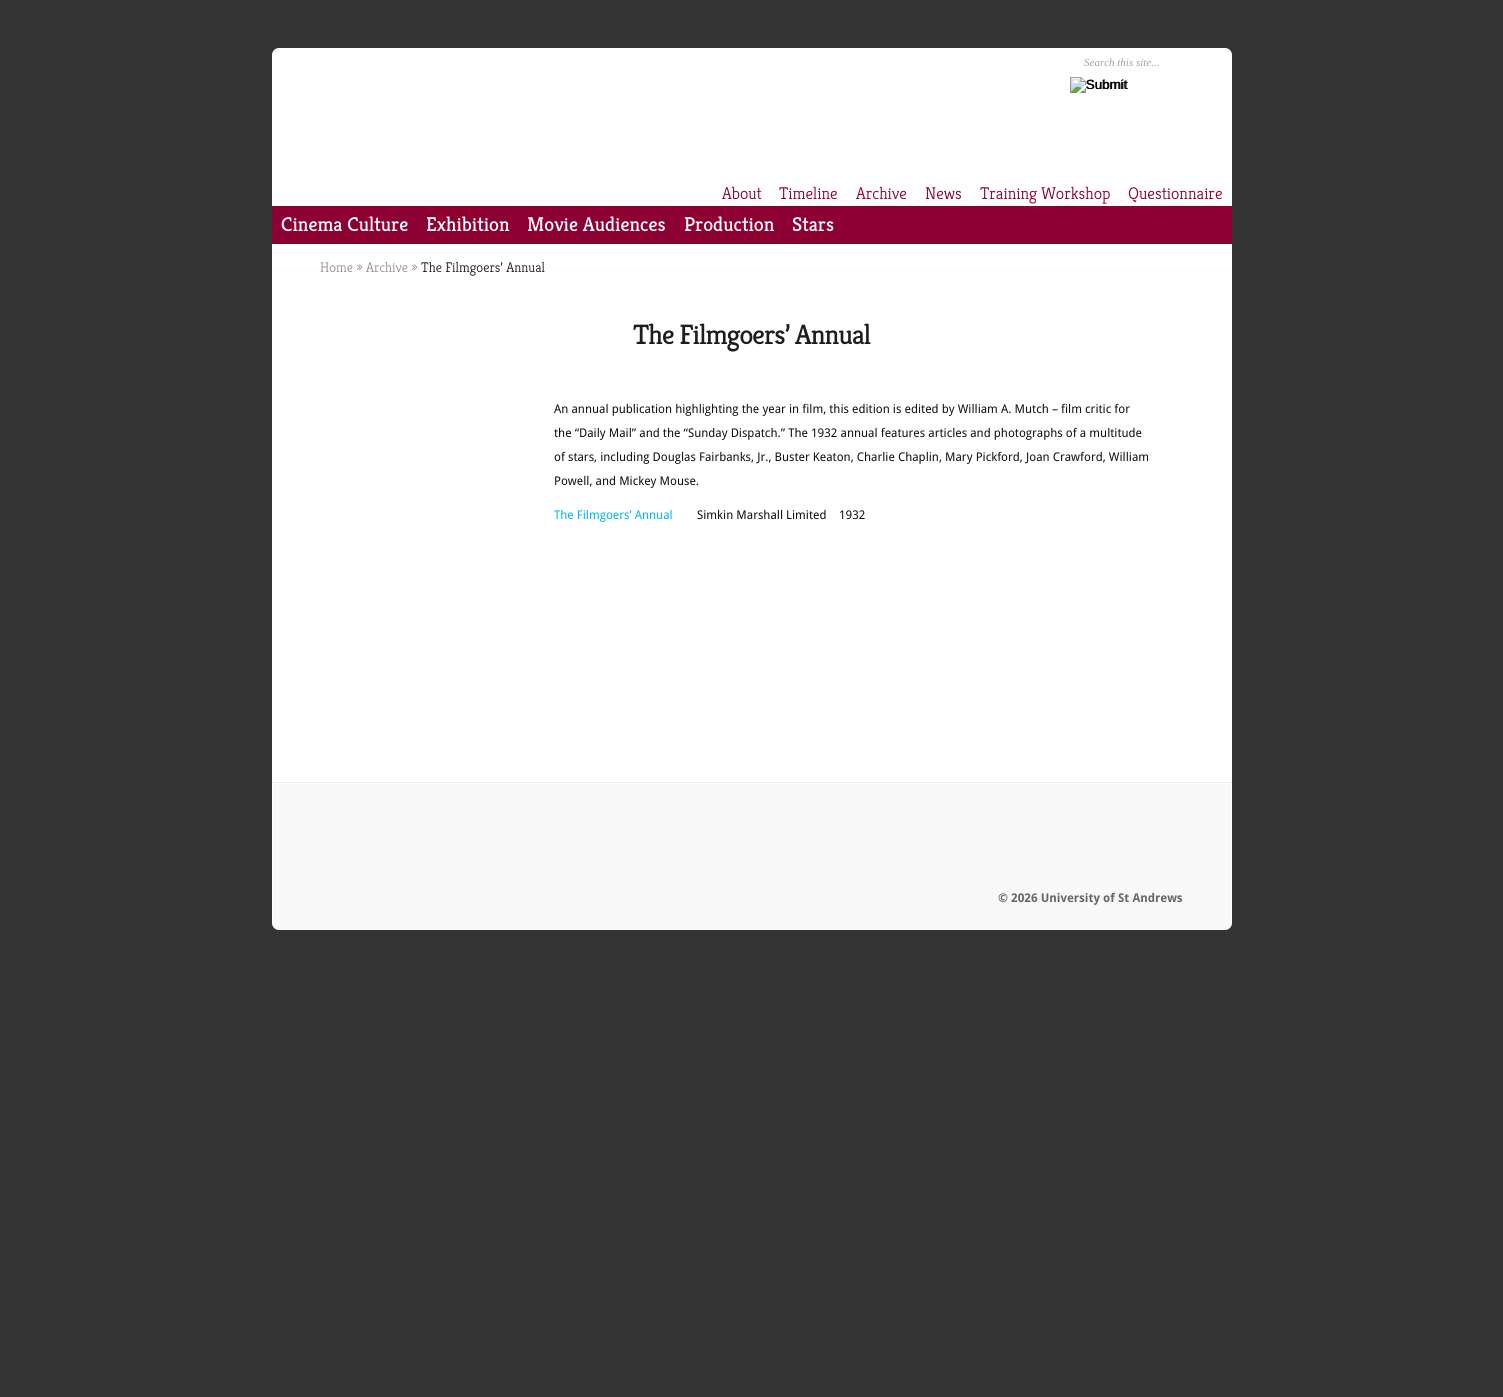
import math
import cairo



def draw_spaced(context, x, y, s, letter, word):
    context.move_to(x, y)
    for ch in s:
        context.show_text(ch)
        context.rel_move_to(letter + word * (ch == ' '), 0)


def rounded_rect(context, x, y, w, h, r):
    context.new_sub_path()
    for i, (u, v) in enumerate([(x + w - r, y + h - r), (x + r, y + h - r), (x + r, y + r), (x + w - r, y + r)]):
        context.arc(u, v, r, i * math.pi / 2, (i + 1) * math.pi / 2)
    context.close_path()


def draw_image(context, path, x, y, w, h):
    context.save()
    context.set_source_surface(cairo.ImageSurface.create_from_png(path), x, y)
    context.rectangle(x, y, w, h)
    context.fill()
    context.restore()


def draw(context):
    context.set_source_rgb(51 / 255, 51 / 255, 51 / 255)
    context.paint()
    context.set_source_rgb(1, 1, 1)
    rounded_rect(context, 272, 48, 960, 882, 7)
    context.fill()
    draw_image(context, "images/1.png", 1070, 77, 57, 16)
    context.set_source_rgb(141 / 255, 1 / 255, 50 / 255)
    context.rectangle(272, 206, 960, 38)
    context.fill()
    context.set_source_rgb(236 / 255, 236 / 255, 236 / 255)
    context.rectangle(272, 782, 960, 1)
    context.fill()
    context.set_source_rgb(249 / 255, 249 / 255, 249 / 255)
    context.new_path()
    context.move_to(273, 784)
    context.line_to(1231, 784)
    context.line_to(1231, 923)
    context.curve_to(1231, 927, 1228, 930, 1224, 930)
    context.line_to(280, 930)
    context.curve_to(276, 930, 273, 927, 273, 923)
    context.close_path()
    context.fill()
    context.select_font_face("Liberation Serif", cairo.FontSlant.ITALIC)
    context.set_font_size(11)
    context.set_source_rgb(163 / 255, 163 / 255, 163 / 255)
    context.move_to(1084, 66)
    context.show_text("Search this site...")
    context.select_font_face("Liberation Sans")
    context.set_font_size(13.5)
    context.set_source_rgb(0, 0, 0)
    context.move_to(1086, 89)
    context.show_text("Submit")
    context.select_font_face("Kreon Light")
    context.set_font_size(17)
    context.set_source_rgb(141 / 255, 1 / 255, 50 / 255)
    context.move_to(722, 199)
    context.show_text("About")
    context.move_to(779, 199)
    context.show_text("Timeline")
    context.move_to(856, 199)
    context.show_text("Archive")
    context.move_to(925, 199)
    context.show_text("News")
    context.move_to(980, 199)
    context.show_text("Training Workshop")
    context.move_to(1128, 199)
    context.show_text("Questionnaire")
    context.select_font_face("Kreon")
    context.set_font_size(20)
    context.set_source_rgb(1, 1, 1)
    context.move_to(281, 231)
    context.show_text("Cinema Culture")
    context.move_to(426, 231)
    context.show_text("Exhibition")
    context.move_to(527, 231)
    context.show_text("Movie Audiences")
    context.move_to(684, 231)
    context.show_text("Production")
    context.move_to(792, 231)
    context.show_text("Stars")
    context.select_font_face("Kreon Light")
    context.set_font_size(14)
    context.set_source_rgb(146 / 255, 146 / 255, 146 / 255)
    context.move_to(320, 272)
    context.show_text("Home » Archive »")
    context.set_source_rgb(29 / 255, 29 / 255, 29 / 255)
    context.move_to(421, 272)
    context.show_text("The Filmgoers’ Annual")
    context.select_font_face("Kreon")
    context.set_font_size(28)
    draw_spaced(context, 633, 344, "The Filmgoers’ Annual", -1, 0)
    context.select_font_face("Droid Sans")
    context.set_font_size(12)
    context.set_source_rgb(17 / 255, 17 / 255, 17 / 255)
    context.move_to(554, 413)
    context.show_text("An annual publication highlighting the year in film, this edition is edited by William A. Mutch – film critic for")
    context.move_to(554, 437)
    context.show_text("the “Daily Mail” and the “Sunday Dispatch.” The 1932 annual features articles and photographs of a multitude")
    context.move_to(554, 461)
    context.show_text("of stars, including Douglas Fairbanks, Jr., Buster Keaton, Charlie Chaplin, Mary Pickford, Joan Crawford, William")
    context.move_to(554, 485)
    context.show_text("Powell, and Mickey Mouse.")
    context.set_source_rgb(0, 183 / 255, 243 / 255)
    context.move_to(554, 519)
    context.show_text("The Filmgoers’ Annual")
    context.set_source_rgb(17 / 255, 17 / 255, 17 / 255)
    context.move_to(697, 519)
    context.show_text("Simkin Marshall Limited    1932")
    context.select_font_face("Droid Sans", cairo.FontSlant.NORMAL, cairo.FontWeight.BOLD)
    context.set_source_rgb(102 / 255, 102 / 255, 102 / 255)
    context.move_to(998, 902)
    context.show_text("© 2026 University of St Andrews")


surface = cairo.ImageSurface(cairo.Format.RGB24, 1503, 1397)
context = cairo.Context(surface)
options = cairo.FontOptions()
options.set_hint_metrics(cairo.HintMetrics.OFF)
options.set_hint_style(cairo.HintStyle.NONE)
context.set_font_options(options)
context.set_miter_limit(4)
draw(context)
surface.write_to_png("out.png")
